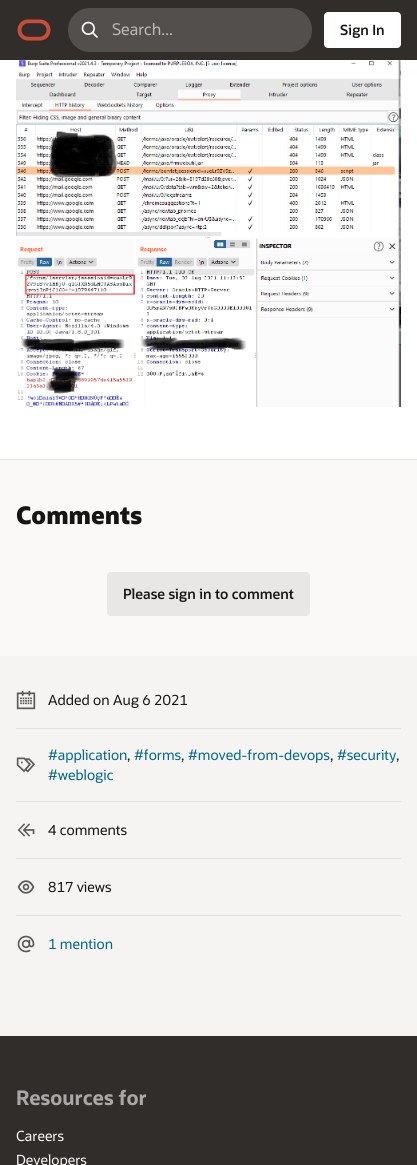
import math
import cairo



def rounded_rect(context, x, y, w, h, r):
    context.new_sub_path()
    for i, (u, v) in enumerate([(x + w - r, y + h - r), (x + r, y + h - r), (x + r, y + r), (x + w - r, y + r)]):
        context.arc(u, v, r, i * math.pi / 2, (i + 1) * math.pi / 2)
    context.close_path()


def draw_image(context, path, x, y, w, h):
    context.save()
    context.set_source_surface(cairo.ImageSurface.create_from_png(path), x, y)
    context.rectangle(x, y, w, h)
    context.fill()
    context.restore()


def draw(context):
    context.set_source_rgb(49 / 255, 45 / 255, 42 / 255)
    context.paint()
    context.set_source_rgb(1, 1, 1)
    context.rectangle(0, 60, 417, 399)
    context.fill()
    draw_image(context, "images/3.png", 16, 60, 385, 347)
    context.rectangle(-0.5, -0.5, 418, 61)
    context.set_source_rgba(1, 1, 1, 0.1)
    context.set_line_width(1)
    context.stroke()
    draw_image(context, "images/1.png", 17, 19, 34, 22)
    context.set_source_rgb(82 / 255, 79 / 255, 76 / 255)
    rounded_rect(context, 68, 8, 244, 44, 22)
    context.fill()
    draw_image(context, "images/2.png", 81, 21, 17, 17)
    context.set_source_rgb(1, 1, 1)
    rounded_rect(context, 324, 12, 77, 36, 4)
    context.fill()
    context.set_source_rgb(251 / 255, 249 / 255, 248 / 255)
    context.rectangle(0, 460, 417, 196)
    context.fill()
    context.set_source_rgb(226 / 255, 224 / 255, 223 / 255)
    context.rectangle(0, 459, 417, 1)
    context.fill()
    context.set_source_rgb(233 / 255, 231 / 255, 230 / 255)
    rounded_rect(context, 107, 572, 203, 44, 4)
    context.fill()
    context.set_source_rgb(245 / 255, 244 / 255, 242 / 255)
    context.rectangle(0, 656, 417, 380)
    context.fill()
    context.set_source_rgb(227 / 255, 226 / 255, 224 / 255)
    context.rectangle(16, 728, 385, 1)
    context.fill()
    draw_image(context, "images/4.png", 16, 690, 20, 20)
    context.rectangle(16, 801, 385, 1)
    context.fill()
    draw_image(context, "images/5.png", 16, 757, 19, 16)
    context.rectangle(16, 858, 385, 1)
    context.fill()
    draw_image(context, "images/6.png", 17, 823, 18, 14)
    context.rectangle(16, 915, 385, 1)
    context.fill()
    draw_image(context, "images/7.png", 17, 880, 18, 14)
    draw_image(context, "images/8.png", 17, 935, 18, 18)
    context.select_font_face("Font")
    context.set_font_size(16)
    context.set_source_rgb(186 / 255, 185 / 255, 183 / 255)
    context.move_to(112, 35)
    context.show_text("Search...")
    context.select_font_face("Font SemiBold")
    context.set_font_size(14)
    context.set_source_rgb(22 / 255, 21 / 255, 19 / 255)
    context.move_to(340, 35)
    context.show_text("Sign In")
    context.select_font_face("Font ExtraBold")
    context.set_font_size(24)
    context.move_to(16, 524)
    context.show_text("Comments")
    context.select_font_face("Font SemiBold")
    context.set_font_size(14)
    context.move_to(123, 599)
    context.show_text("Please sign in to comment")
    context.select_font_face("Font")
    context.move_to(48, 705)
    context.show_text("Added on Aug 6 2021")
    context.set_source_rgb(0, 104 / 255, 140 / 255)
    context.move_to(48, 760)
    context.show_text("#application")
    context.set_source_rgb(22 / 255, 21 / 255, 19 / 255)
    context.move_to(127, 760)
    context.show_text(",")
    context.set_source_rgb(0, 104 / 255, 140 / 255)
    context.move_to(134, 760)
    context.show_text("#forms")
    context.set_source_rgb(22 / 255, 21 / 255, 19 / 255)
    context.move_to(181, 760)
    context.show_text(",")
    context.set_source_rgb(0, 104 / 255, 140 / 255)
    context.move_to(188, 760)
    context.show_text("#moved-from-devops")
    context.set_source_rgb(22 / 255, 21 / 255, 19 / 255)
    context.move_to(330, 760)
    context.show_text(",")
    context.set_source_rgb(0, 104 / 255, 140 / 255)
    context.move_to(337, 760)
    context.show_text("#security")
    context.set_source_rgb(22 / 255, 21 / 255, 19 / 255)
    context.move_to(396, 760)
    context.show_text(",")
    context.set_source_rgb(0, 104 / 255, 140 / 255)
    context.move_to(48, 780)
    context.show_text("#weblogic")
    context.set_source_rgb(22 / 255, 21 / 255, 19 / 255)
    context.move_to(48, 835)
    context.show_text("4 comments")
    context.move_to(48, 892)
    context.show_text("817 views")
    context.set_source_rgb(0, 104 / 255, 140 / 255)
    context.move_to(48, 949)
    context.show_text("1 mention")
    context.select_font_face("Font", cairo.FontSlant.NORMAL, cairo.FontWeight.BOLD)
    context.set_font_size(20)
    context.set_source_rgb(170 / 255, 167 / 255, 166 / 255)
    context.move_to(16, 1105)
    context.show_text("Resources for")
    context.select_font_face("Font")
    context.set_font_size(14)
    context.set_source_rgb(251 / 255, 249 / 255, 248 / 255)
    context.move_to(16, 1141)
    context.show_text("Careers")
    context.move_to(16, 1165)
    context.show_text("Developers")


surface = cairo.ImageSurface(cairo.Format.RGB24, 417, 1165)
context = cairo.Context(surface)
options = cairo.FontOptions()
options.set_hint_metrics(cairo.HintMetrics.OFF)
options.set_hint_style(cairo.HintStyle.NONE)
context.set_font_options(options)
context.set_miter_limit(4)
draw(context)
surface.write_to_png("out.png")
